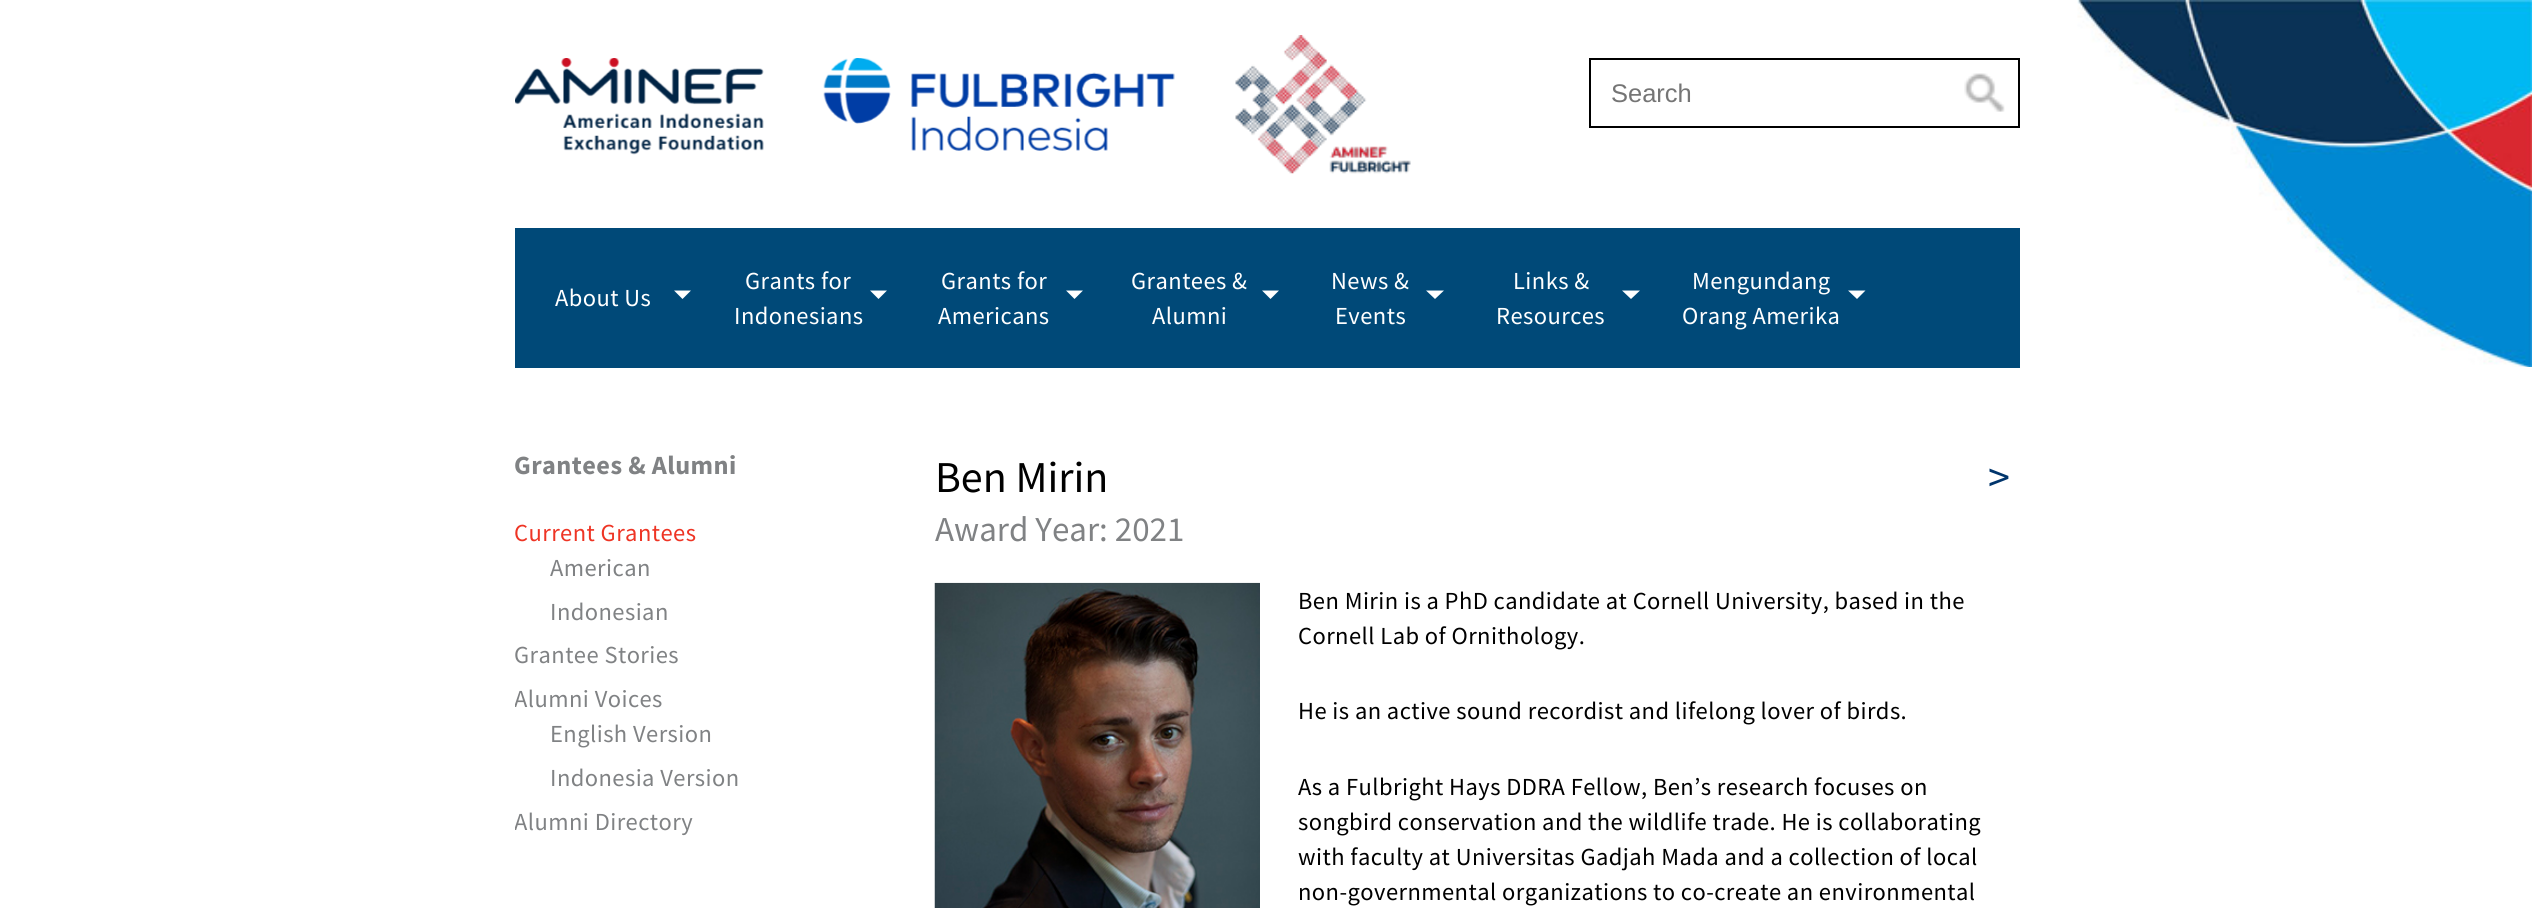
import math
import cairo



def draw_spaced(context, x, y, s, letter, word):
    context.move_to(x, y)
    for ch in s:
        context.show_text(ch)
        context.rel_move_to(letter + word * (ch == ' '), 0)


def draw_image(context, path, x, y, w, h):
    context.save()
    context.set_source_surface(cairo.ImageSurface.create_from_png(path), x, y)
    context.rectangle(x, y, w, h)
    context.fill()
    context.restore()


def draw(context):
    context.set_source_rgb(1, 1, 1)
    context.paint()
    draw_image(context, "images/1.png", 2077, 0, 455, 367)
    draw_image(context, "images/2.png", 515, 58, 249, 97)
    draw_image(context, "images/3.png", 823, 58, 352, 93)
    draw_image(context, "images/4.png", 1235, 35, 176, 139)
    context.rectangle(1590, 59, 429, 68)
    context.set_source_rgb(0, 0, 0)
    context.stroke()
    draw_image(context, "images/5.png", 1964, 73, 41, 39)
    context.set_source_rgb(0, 73 / 255, 120 / 255)
    context.rectangle(515, 228, 1505, 140)
    context.fill()
    context.set_source_rgb(1, 1, 1)
    context.new_path()
    context.move_to(674, 290.5)
    context.line_to(691, 290.5)
    context.line_to(682.5, 299)
    context.close_path()
    context.fill()
    context.new_path()
    context.move_to(870, 290.5)
    context.line_to(887, 290.5)
    context.line_to(878.5, 299)
    context.close_path()
    context.fill()
    context.new_path()
    context.move_to(1066, 290.5)
    context.line_to(1083, 290.5)
    context.line_to(1074.5, 299)
    context.close_path()
    context.fill()
    context.new_path()
    context.move_to(1262, 290.5)
    context.line_to(1279, 290.5)
    context.line_to(1270.5, 299)
    context.close_path()
    context.fill()
    context.new_path()
    context.move_to(1426, 290.5)
    context.line_to(1444, 290.5)
    context.line_to(1435, 299)
    context.close_path()
    context.fill()
    context.new_path()
    context.move_to(1622, 290.5)
    context.line_to(1640, 290.5)
    context.line_to(1631, 299)
    context.close_path()
    context.fill()
    context.new_path()
    context.move_to(1848, 290.5)
    context.line_to(1865.5, 290.5)
    context.line_to(1857, 299)
    context.close_path()
    context.fill()
    draw_image(context, "images/6.png", 934, 582, 326, 326)
    context.select_font_face("Liberation Sans")
    context.set_font_size(25.5)
    context.set_source_rgb(117 / 255, 117 / 255, 117 / 255)
    context.move_to(1611, 102)
    context.show_text("Search")
    context.select_font_face("Source Sans Pro")
    context.set_font_size(24.5)
    context.set_source_rgb(1, 1, 1)
    draw_spaced(context, 555, 306, "About Us", 0.45, 0)
    draw_spaced(context, 745, 289, "Grants for", 0.45, 0)
    draw_spaced(context, 734, 324, "Indonesians", 0.45, 0)
    draw_spaced(context, 941, 289, "Grants for", 0.45, 0)
    draw_spaced(context, 938, 324, "Americans", 0.45, 0)
    draw_spaced(context, 1131, 289, "Grantees &", 0.45, 0)
    draw_spaced(context, 1152, 324, "Alumni", 0.45, 0)
    draw_spaced(context, 1331, 289, "News &", 0.45, 0)
    draw_spaced(context, 1335, 324, "Events", 0.45, 0)
    draw_spaced(context, 1513, 289, "Links &", 0.45, 0)
    draw_spaced(context, 1496, 324, "Resources", 0.45, 0)
    draw_spaced(context, 1692, 289, "Mengundang", 0.45, 0)
    draw_spaced(context, 1682, 324, "Orang Amerika", 0.45, 0)
    context.save()
    context.rectangle(515, 368, 1505, 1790)
    context.clip()
    context.select_font_face("Source Sans Pro", cairo.FontSlant.NORMAL, cairo.FontWeight.BOLD)
    context.set_font_size(26.25)
    context.set_source_rgb(128 / 255, 130 / 255, 132 / 255)
    draw_spaced(context, 514, 474, "Grantees & Alumni", 0.45, 0)
    context.restore()
    context.set_source_rgb(238 / 255, 52 / 255, 36 / 255)
    draw_spaced(context, 514, 541, "Current Grantees", 0.45, 0)
    context.set_source_rgb(128 / 255, 130 / 255, 132 / 255)
    draw_spaced(context, 550, 576, "American", 0.45, 0)
    draw_spaced(context, 550, 620, "Indonesian", 0.45, 0)
    draw_spaced(context, 514, 663, "Grantee Stories", 0.45, 0)
    context.save()
    context.rectangle(515, 368, 1505, 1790)
    context.clip()
    draw_spaced(context, 514, 707, "Alumni Voices", 0.45, 0)
    context.restore()
    draw_spaced(context, 550, 742, "English Version", 0.45, 0)
    draw_spaced(context, 550, 786, "Indonesia Version", 0.45, 0)
    context.save()
    context.rectangle(515, 368, 1505, 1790)
    context.clip()
    draw_spaced(context, 514, 830, "Alumni Directory", 0.45, 0)
    context.restore()
    context.set_font_size(44)
    context.set_source_rgb(0, 0, 0)
    context.move_to(935, 492)
    context.show_text("Ben Mirin")
    context.set_source_rgb(1 / 255, 53 / 255, 108 / 255)
    context.move_to(1988, 492)
    context.show_text(">")
    context.set_font_size(35)
    context.set_source_rgb(128 / 255, 130 / 255, 132 / 255)
    context.move_to(935, 541)
    context.show_text("Award Year: 2021")
    context.set_font_size(24.5)
    context.set_source_rgb(0, 0, 0)
    draw_spaced(context, 1298, 609, "Ben Mirin is a PhD candidate at Cornell University, based in the", 0.45, 0)
    draw_spaced(context, 1298, 644, "Cornell Lab of Ornithology.", 0.45, 0)
    draw_spaced(context, 1298, 719, "He is an active sound recordist and lifelong lover of birds.", 0.45, 0)
    draw_spaced(context, 1298, 795, "As a Fulbright Hays DDRA Fellow, Ben’s research focuses on", 0.45, 0)
    draw_spaced(context, 1298, 830, "songbird conservation and the wildlife trade. He is collaborating", 0.45, 0)
    draw_spaced(context, 1298, 865, "with faculty at Universitas Gadjah Mada and a collection of local", 0.45, 0)
    draw_spaced(context, 1298, 900, "non-governmental organizations to co-create an environmental", 0.45, 0)


surface = cairo.ImageSurface(cairo.Format.RGB24, 2532, 908)
context = cairo.Context(surface)
options = cairo.FontOptions()
options.set_hint_metrics(cairo.HintMetrics.OFF)
options.set_hint_style(cairo.HintStyle.NONE)
context.set_font_options(options)
context.set_miter_limit(4)
draw(context)
surface.write_to_png("out.png")
